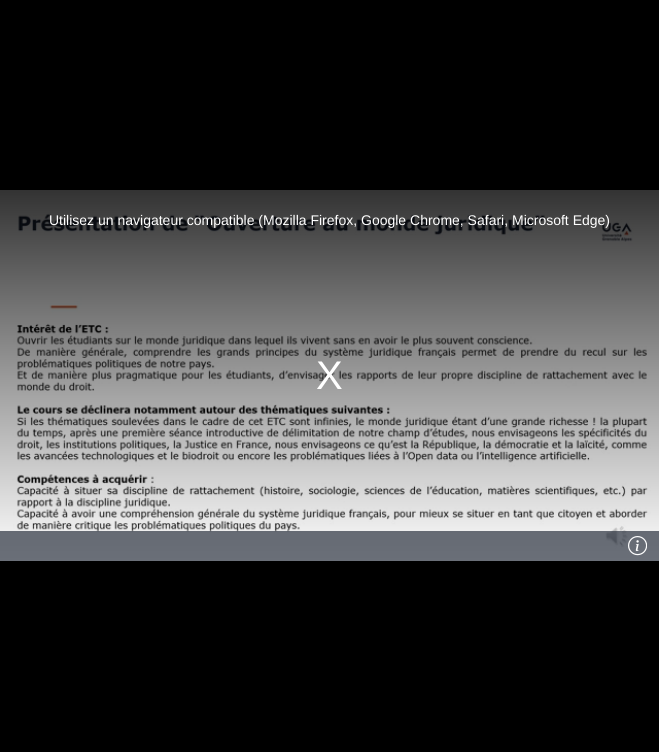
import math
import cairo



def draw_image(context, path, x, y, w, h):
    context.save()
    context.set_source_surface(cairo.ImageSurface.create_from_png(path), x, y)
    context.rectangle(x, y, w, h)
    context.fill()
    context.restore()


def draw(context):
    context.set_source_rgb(0, 0, 0)
    context.paint()
    draw_image(context, "images/1.png", 0, 190, 659, 371)
    context.set_source_rgba(43 / 255, 51 / 255, 63 / 255, 0.7)
    context.rectangle(0, 531, 659, 30)
    context.fill()
    draw_image(context, "images/2.png", 628, 536, 19, 20)
    context.select_font_face("Liberation Sans")
    context.set_font_size(14)
    context.set_source_rgb(1, 1, 1)
    context.move_to(49, 225)
    context.show_text("Utilisez un navigateur compatible (Mozilla Firefox, Google Chrome, Safari, Microsoft Edge)")
    context.set_font_size(40)
    context.move_to(316, 389)
    context.show_text("X")


surface = cairo.ImageSurface(cairo.Format.RGB24, 659, 752)
context = cairo.Context(surface)
options = cairo.FontOptions()
options.set_hint_metrics(cairo.HintMetrics.OFF)
options.set_hint_style(cairo.HintStyle.NONE)
context.set_font_options(options)
context.set_miter_limit(4)
draw(context)
surface.write_to_png("out.png")
